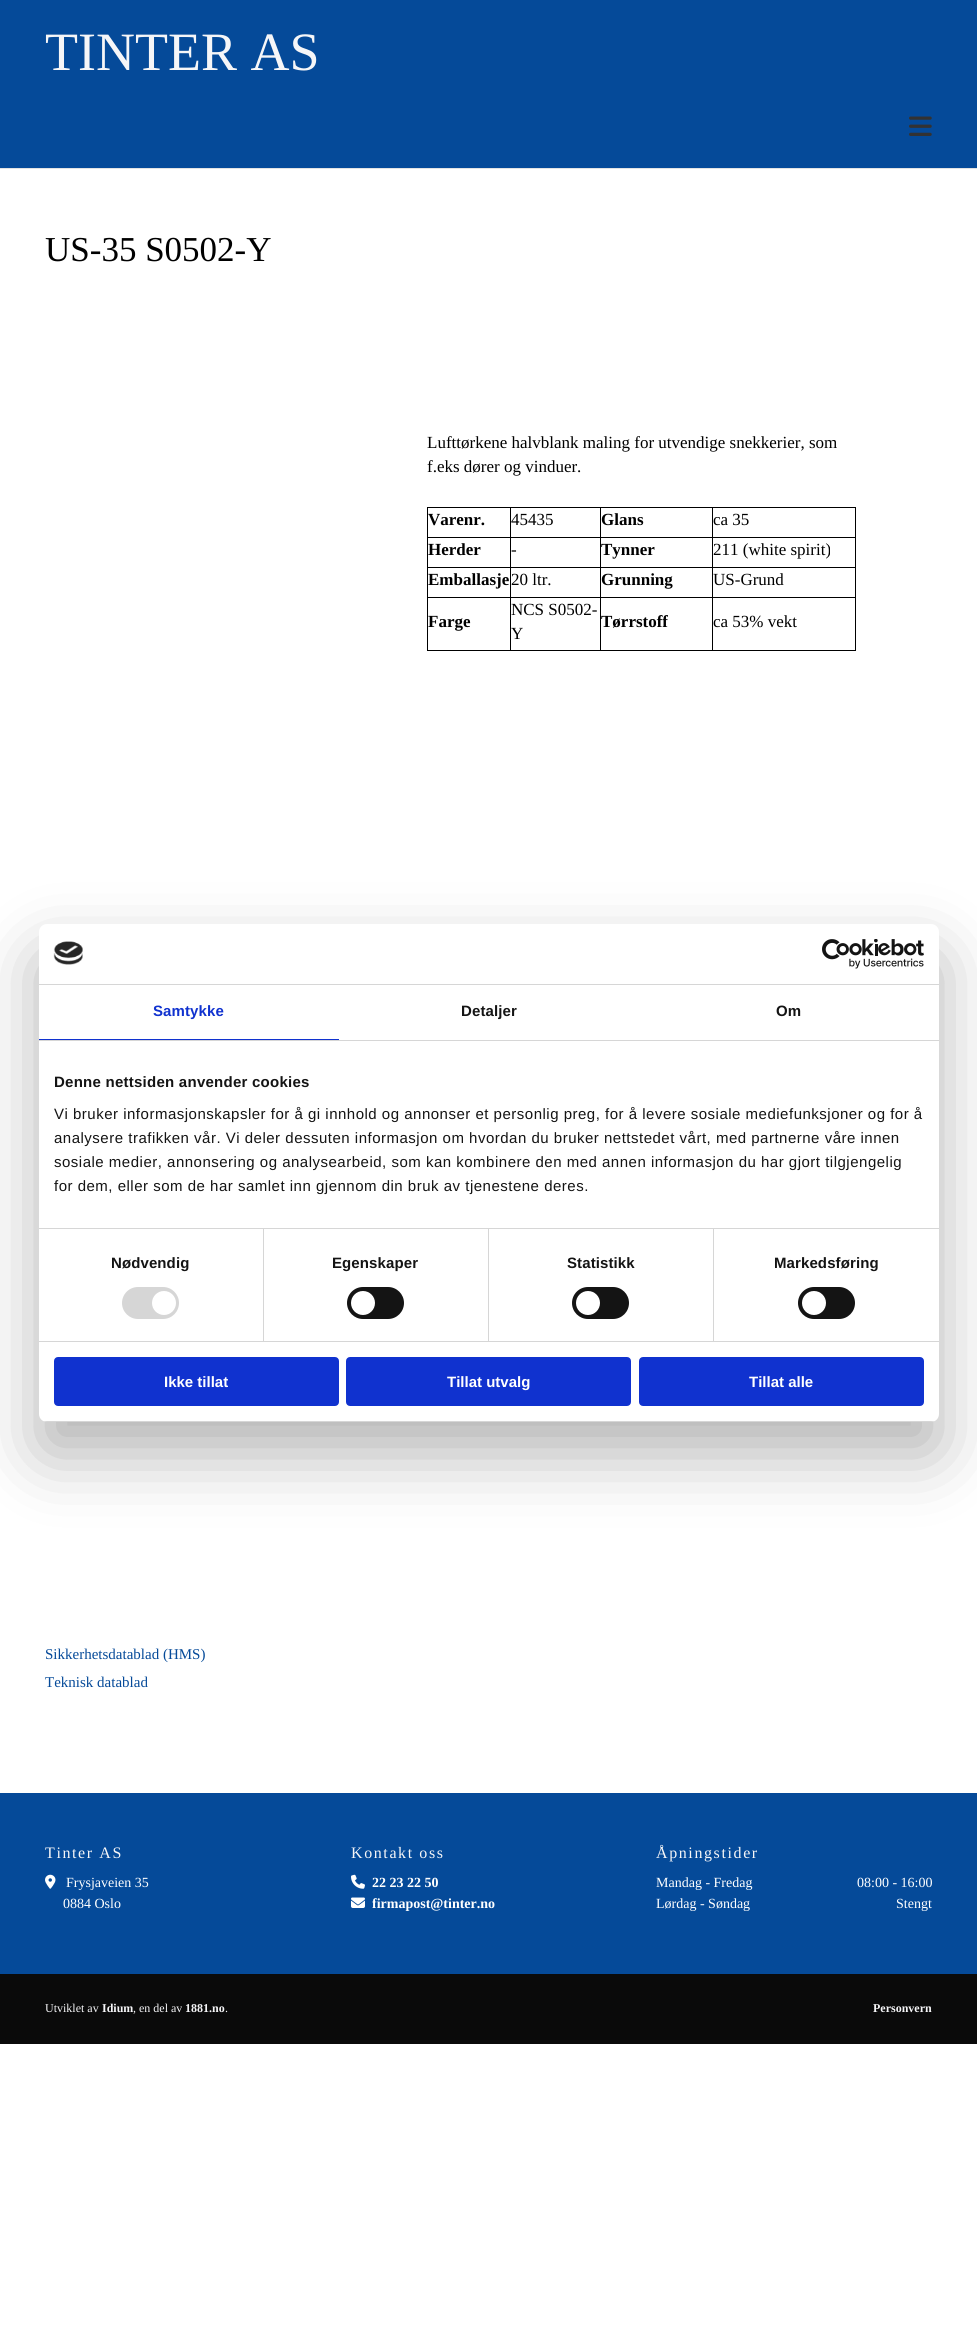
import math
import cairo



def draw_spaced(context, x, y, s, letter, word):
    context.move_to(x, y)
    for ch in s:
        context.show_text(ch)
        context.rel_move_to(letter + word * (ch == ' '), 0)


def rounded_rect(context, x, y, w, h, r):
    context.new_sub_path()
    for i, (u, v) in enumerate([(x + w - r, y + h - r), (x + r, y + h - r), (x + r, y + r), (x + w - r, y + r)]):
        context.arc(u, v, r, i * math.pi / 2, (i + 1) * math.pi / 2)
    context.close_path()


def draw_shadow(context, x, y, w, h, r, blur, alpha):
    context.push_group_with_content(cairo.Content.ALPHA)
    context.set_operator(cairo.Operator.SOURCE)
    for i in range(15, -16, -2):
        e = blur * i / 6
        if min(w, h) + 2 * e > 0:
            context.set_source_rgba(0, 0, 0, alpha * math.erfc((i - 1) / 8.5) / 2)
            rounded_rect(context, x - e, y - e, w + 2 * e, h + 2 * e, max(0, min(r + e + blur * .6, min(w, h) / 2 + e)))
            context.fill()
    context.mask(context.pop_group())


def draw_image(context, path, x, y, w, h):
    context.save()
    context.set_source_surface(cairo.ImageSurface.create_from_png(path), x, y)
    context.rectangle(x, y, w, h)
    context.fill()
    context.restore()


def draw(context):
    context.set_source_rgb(1, 1, 1)
    context.paint()
    context.set_source_rgb(5 / 255, 74 / 255, 153 / 255)
    context.rectangle(0, 0, 977, 168)
    context.fill()
    context.set_source_rgb(227 / 255, 227 / 255, 227 / 255)
    context.rectangle(0, 168, 977, 1)
    context.fill()
    draw_image(context, "images/1.png", 909, 116, 23, 20)
    context.set_source_rgb(0, 0, 0)
    context.rectangle(427, 507, 429, 1)
    context.fill()
    context.rectangle(855, 537, 1, 114)
    context.fill()
    context.rectangle(855, 507, 1, 31)
    context.fill()
    context.rectangle(712, 650, 144, 1)
    context.fill()
    context.rectangle(712, 597, 1, 54)
    context.fill()
    context.rectangle(712, 597, 144, 1)
    context.fill()
    context.rectangle(712, 567, 1, 31)
    context.fill()
    context.rectangle(712, 567, 144, 1)
    context.fill()
    context.rectangle(712, 537, 1, 31)
    context.fill()
    context.rectangle(712, 537, 144, 1)
    context.fill()
    context.rectangle(712, 507, 1, 31)
    context.fill()
    context.rectangle(600, 650, 113, 1)
    context.fill()
    context.rectangle(600, 597, 1, 54)
    context.fill()
    context.rectangle(600, 597, 113, 1)
    context.fill()
    context.rectangle(600, 567, 1, 31)
    context.fill()
    context.rectangle(600, 567, 113, 1)
    context.fill()
    context.rectangle(600, 537, 1, 31)
    context.fill()
    context.rectangle(600, 537, 113, 1)
    context.fill()
    context.rectangle(600, 507, 1, 31)
    context.fill()
    context.rectangle(510, 650, 91, 1)
    context.fill()
    context.rectangle(510, 597, 1, 54)
    context.fill()
    context.rectangle(510, 597, 91, 1)
    context.fill()
    context.rectangle(510, 567, 1, 31)
    context.fill()
    context.rectangle(510, 567, 91, 1)
    context.fill()
    context.rectangle(510, 537, 1, 31)
    context.fill()
    context.rectangle(510, 537, 91, 1)
    context.fill()
    context.rectangle(510, 507, 1, 31)
    context.fill()
    context.rectangle(427, 650, 84, 1)
    context.fill()
    context.rectangle(427, 597, 1, 54)
    context.fill()
    context.rectangle(427, 597, 84, 1)
    context.fill()
    context.rectangle(427, 567, 1, 31)
    context.fill()
    context.rectangle(427, 567, 84, 1)
    context.fill()
    context.rectangle(427, 537, 1, 31)
    context.fill()
    context.rectangle(427, 537, 84, 1)
    context.fill()
    context.rectangle(427, 507, 1, 31)
    context.fill()
    context.set_source_rgb(5 / 255, 74 / 255, 153 / 255)
    context.rectangle(0, 1793, 977, 181)
    context.fill()
    draw_image(context, "images/2.png", 45, 1874, 11, 15)
    draw_image(context, "images/3.png", 351, 1874, 14, 15)
    draw_image(context, "images/4.png", 351, 1897, 14, 11)
    context.set_source_rgb(10 / 255, 10 / 255, 10 / 255)
    context.rectangle(0, 1974, 977, 70)
    context.fill()
    context.set_source_rgb(0, 0, 0)
    draw_shadow(context, 39, 956, 900, 498, 8, 34, 0.3)
    context.set_source_rgb(1, 1, 1)
    rounded_rect(context, 39, 924, 900, 498, 8)
    context.fill()
    context.set_source_rgb(214 / 255, 214 / 255, 214 / 255)
    context.rectangle(39, 984, 900, 1)
    context.fill()
    draw_image(context, "images/5.png", 53, 941, 30, 24)
    draw_image(context, "images/6.png", 822, 939, 102, 30)
    context.rectangle(39, 1040, 900, 1)
    context.fill()
    context.set_source_rgb(16 / 255, 50 / 255, 207 / 255)
    context.rectangle(39, 1039, 300, 1)
    context.fill()
    context.set_source_rgb(214 / 255, 214 / 255, 214 / 255)
    context.rectangle(39, 1228, 900, 1)
    context.fill()
    context.rectangle(39, 1341, 900, 1)
    context.fill()
    context.rectangle(263, 1229, 1, 112)
    context.fill()
    rounded_rect(context, 122, 1287, 57, 32, 16)
    context.fill()
    context.set_source_rgb(1, 1, 1)
    context.arc(164, 1303, 12, 0, 2 * math.pi)
    context.fill()
    context.set_source_rgb(214 / 255, 214 / 255, 214 / 255)
    context.rectangle(488, 1229, 1, 112)
    context.fill()
    context.set_source_rgb(20 / 255, 20 / 255, 20 / 255)
    rounded_rect(context, 347, 1287, 57, 32, 16)
    context.fill()
    context.set_source_rgb(1, 1, 1)
    context.arc(363, 1303, 12, 0, 2 * math.pi)
    context.fill()
    context.set_source_rgb(214 / 255, 214 / 255, 214 / 255)
    context.rectangle(713, 1229, 1, 112)
    context.fill()
    context.set_source_rgb(20 / 255, 20 / 255, 20 / 255)
    rounded_rect(context, 572, 1287, 57, 32, 16)
    context.fill()
    context.set_source_rgb(1, 1, 1)
    context.arc(588, 1303, 12, 0, 2 * math.pi)
    context.fill()
    context.set_source_rgb(20 / 255, 20 / 255, 20 / 255)
    rounded_rect(context, 798, 1287, 57, 32, 16)
    context.fill()
    context.set_source_rgb(1, 1, 1)
    context.arc(814, 1303, 12, 0, 2 * math.pi)
    context.fill()
    context.save()
    rounded_rect(context, 39, 924, 900, 498, 8)
    context.clip()
    context.set_source_rgb(214 / 255, 214 / 255, 214 / 255)
    context.rectangle(39, 1421, 900, 1)
    context.fill()
    context.restore()
    context.set_source_rgb(16 / 255, 50 / 255, 207 / 255)
    rounded_rect(context, 55, 1358, 283, 47, 3)
    context.fill_preserve()
    context.stroke()
    rounded_rect(context, 347, 1358, 283, 47, 3)
    context.fill_preserve()
    context.stroke()
    rounded_rect(context, 640, 1358, 283, 47, 3)
    context.fill_preserve()
    context.stroke()
    context.select_font_face("Liberation Serif")
    context.set_font_size(54)
    context.set_source_rgb(246 / 255, 246 / 255, 248 / 255)
    context.move_to(45, 70)
    context.show_text("TINTER AS")
    context.set_font_size(35)
    context.set_source_rgb(0, 0, 0)
    context.move_to(45, 261)
    context.show_text("US-35 S0502-Y")
    context.set_font_size(17)
    context.move_to(427, 448)
    context.show_text("Lufttørkene halvblank maling for utvendige snekkerier, som")
    context.move_to(427, 472)
    context.show_text("f.eks dører og vinduer.")
    context.select_font_face("Liberation Serif", cairo.FontSlant.NORMAL, cairo.FontWeight.BOLD)
    context.move_to(428, 525)
    context.show_text("Varenr.")
    context.select_font_face("Liberation Serif")
    context.move_to(511, 525)
    context.show_text("45435")
    context.select_font_face("Liberation Serif", cairo.FontSlant.NORMAL, cairo.FontWeight.BOLD)
    context.move_to(601, 525)
    context.show_text("Glans")
    context.select_font_face("Liberation Serif")
    context.move_to(713, 525)
    context.show_text("ca 35")
    context.select_font_face("Liberation Serif", cairo.FontSlant.NORMAL, cairo.FontWeight.BOLD)
    context.move_to(428, 555)
    context.show_text("Herder")
    context.select_font_face("Liberation Serif")
    context.move_to(511, 555)
    context.show_text("-")
    context.select_font_face("Liberation Serif", cairo.FontSlant.NORMAL, cairo.FontWeight.BOLD)
    context.move_to(601, 555)
    context.show_text("Tynner")
    context.select_font_face("Liberation Serif")
    context.move_to(713, 555)
    context.show_text("211 (white spirit)")
    context.select_font_face("Liberation Serif", cairo.FontSlant.NORMAL, cairo.FontWeight.BOLD)
    context.move_to(428, 585)
    context.show_text("Emballasje")
    context.select_font_face("Liberation Serif")
    context.move_to(511, 585)
    context.show_text("20 ltr.")
    context.select_font_face("Liberation Serif", cairo.FontSlant.NORMAL, cairo.FontWeight.BOLD)
    context.move_to(601, 585)
    context.show_text("Grunning")
    context.select_font_face("Liberation Serif")
    context.move_to(713, 585)
    context.show_text("US-Grund")
    context.select_font_face("Liberation Serif", cairo.FontSlant.NORMAL, cairo.FontWeight.BOLD)
    context.move_to(428, 627)
    context.show_text("Farge")
    context.select_font_face("Liberation Serif")
    context.move_to(511, 615)
    context.show_text("NCS S0502-")
    context.move_to(511, 639)
    context.show_text("Y")
    context.select_font_face("Liberation Serif", cairo.FontSlant.NORMAL, cairo.FontWeight.BOLD)
    context.move_to(601, 627)
    context.show_text("Tørrstoff")
    context.select_font_face("Liberation Serif")
    context.move_to(713, 627)
    context.show_text("ca 53% vekt")
    context.set_font_size(15)
    context.set_source_rgb(5 / 255, 74 / 255, 153 / 255)
    context.move_to(45, 1659)
    context.show_text("Sikkerhetsdatablad (HMS)")
    context.move_to(45, 1687)
    context.show_text("Teknisk datablad")
    context.set_font_size(16)
    context.set_source_rgb(246 / 255, 246 / 255, 248 / 255)
    draw_spaced(context, 45, 1858, "Tinter AS", 1.6, 0)
    context.set_font_size(14)
    context.set_source_rgb(1, 1, 1)
    context.move_to(66, 1887)
    context.show_text("Frysjaveien 35")
    context.move_to(63, 1908)
    context.show_text("0884 Oslo")
    context.set_font_size(16)
    context.set_source_rgb(246 / 255, 246 / 255, 248 / 255)
    draw_spaced(context, 351, 1858, "Kontakt oss", 1.6, 0)
    context.select_font_face("Liberation Serif", cairo.FontSlant.NORMAL, cairo.FontWeight.BOLD)
    context.set_font_size(14)
    context.set_source_rgb(1, 1, 1)
    context.move_to(372, 1887)
    context.show_text("22 23 22 50")
    context.move_to(372, 1908)
    context.show_text("firmapost@tinter.no")
    context.select_font_face("Liberation Serif")
    context.set_font_size(16)
    context.set_source_rgb(246 / 255, 246 / 255, 248 / 255)
    draw_spaced(context, 656, 1858, "Åpningstider", 1.6, 0)
    context.set_font_size(14)
    context.set_source_rgb(1, 1, 1)
    context.move_to(656, 1887)
    context.show_text("Mandag - Fredag")
    context.move_to(857, 1887)
    context.show_text("08:00 - 16:00")
    context.move_to(656, 1908)
    context.show_text("Lørdag - Søndag")
    context.move_to(896, 1908)
    context.show_text("Stengt")
    context.set_font_size(12)
    context.set_source_rgb(246 / 255, 246 / 255, 248 / 255)
    context.move_to(45, 2012)
    context.show_text("Utviklet av")
    context.select_font_face("Liberation Serif", cairo.FontSlant.NORMAL, cairo.FontWeight.BOLD)
    context.move_to(102, 2012)
    context.show_text("Idium")
    context.select_font_face("Liberation Serif")
    context.move_to(133, 2012)
    context.show_text(", en del av")
    context.select_font_face("Liberation Serif", cairo.FontSlant.NORMAL, cairo.FontWeight.BOLD)
    context.move_to(185, 2012)
    context.show_text("1881.no")
    context.select_font_face("Liberation Serif")
    context.move_to(225, 2012)
    context.show_text(".")
    context.select_font_face("Liberation Serif", cairo.FontSlant.NORMAL, cairo.FontWeight.BOLD)
    context.move_to(873, 2012)
    context.show_text("Personvern")
    context.select_font_face("Liberation Sans", cairo.FontSlant.NORMAL, cairo.FontWeight.BOLD)
    context.set_font_size(15)
    context.set_source_rgb(16 / 255, 50 / 255, 207 / 255)
    draw_spaced(context, 153, 1016, "Samtykke", 0.1, 0)
    context.set_source_rgb(20 / 255, 20 / 255, 20 / 255)
    draw_spaced(context, 461, 1016, "Detaljer", 0.1, 0)
    draw_spaced(context, 776, 1016, "Om", 0.1, 0)
    draw_spaced(context, 54, 1087, "Denne nettsiden anvender cookies", 0.25, 0)
    context.select_font_face("Liberation Sans")
    draw_spaced(context, 54, 1119, "Vi bruker informasjonskapsler for å gi innhold og annonser et personlig preg, for å levere sosiale mediefunksjoner og for å", 0.5, 0)
    draw_spaced(context, 54, 1143, "analysere trafikken vår. Vi deler dessuten informasjon om hvordan du bruker nettstedet vårt, med partnerne våre innen", 0.5, 0)
    draw_spaced(context, 54, 1167, "sosiale medier, annonsering og analysearbeid, som kan kombinere den med annen informasjon du har gjort tilgjengelig", 0.5, 0)
    draw_spaced(context, 54, 1191, "for dem, eller som de har samlet inn gjennom din bruk av tjenestene deres.", 0.5, 0)
    context.select_font_face("Liberation Sans", cairo.FontSlant.NORMAL, cairo.FontWeight.BOLD)
    draw_spaced(context, 111, 1268, "Nødvendig", 0.1, 0)
    draw_spaced(context, 332, 1268, "Egenskaper", 0.1, 0)
    draw_spaced(context, 567, 1268, "Statistikk", 0.1, 0)
    draw_spaced(context, 774, 1268, "Markedsføring", 0.1, 0)
    context.set_source_rgb(1, 1, 1)
    context.move_to(164, 1387)
    context.show_text("Ikke tillat")
    context.move_to(447, 1387)
    context.show_text("Tillat utvalg")
    context.move_to(749, 1387)
    context.show_text("Tillat alle")


surface = cairo.ImageSurface(cairo.Format.RGB24, 977, 2345)
context = cairo.Context(surface)
options = cairo.FontOptions()
options.set_hint_metrics(cairo.HintMetrics.OFF)
options.set_hint_style(cairo.HintStyle.NONE)
context.set_font_options(options)
context.set_miter_limit(4)
draw(context)
surface.write_to_png("out.png")
